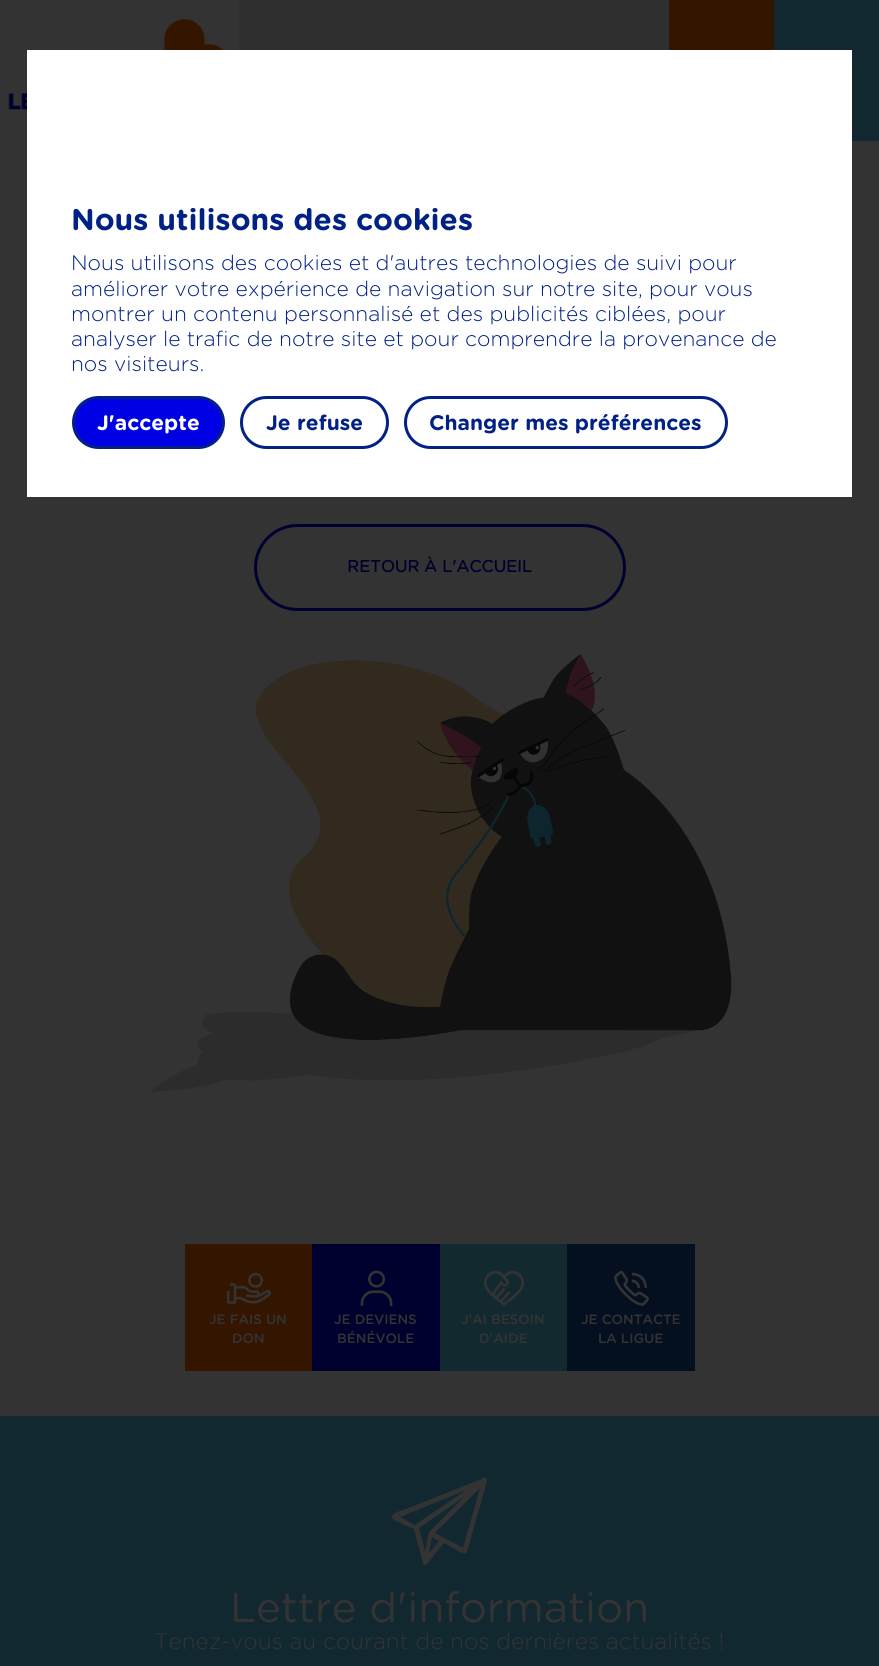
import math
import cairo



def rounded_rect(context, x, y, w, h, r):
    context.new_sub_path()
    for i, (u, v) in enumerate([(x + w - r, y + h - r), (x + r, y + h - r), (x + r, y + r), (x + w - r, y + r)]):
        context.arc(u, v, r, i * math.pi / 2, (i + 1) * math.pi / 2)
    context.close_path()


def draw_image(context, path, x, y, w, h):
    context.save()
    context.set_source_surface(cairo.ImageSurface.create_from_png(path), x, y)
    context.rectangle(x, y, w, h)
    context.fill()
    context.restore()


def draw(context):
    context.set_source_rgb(51 / 255, 51 / 255, 51 / 255)
    context.paint()
    context.set_source_rgb(47 / 255, 47 / 255, 47 / 255)
    context.rectangle(239, 0, 430, 50)
    context.fill()
    draw_image(context, "images/1.png", 8, 19, 216, 91)
    context.set_source_rgb(51 / 255, 21 / 255, 0)
    context.rectangle(669, 0, 105, 50)
    context.fill()
    context.set_source_rgb(18 / 255, 40 / 255, 48 / 255)
    context.rectangle(774, 0, 105, 141)
    context.fill()
    context.set_source_rgb(1, 1, 1)
    context.rectangle(27, 50, 825, 447)
    context.fill()
    context.set_source_rgb(0, 0, 229 / 255)
    rounded_rect(context, 73.5, 397.5, 150, 50, 25)
    context.fill_preserve()
    context.set_source_rgb(1 / 255, 33 / 255, 133 / 255)
    context.set_line_width(3)
    context.stroke()
    rounded_rect(context, 241.5, 397.5, 146, 50, 25)
    context.stroke()
    rounded_rect(context, 405.5, 397.5, 321, 50, 25)
    context.stroke()
    rounded_rect(context, 255.5, 525.5, 369, 84, 42)
    context.set_source_rgb(0, 0, 46 / 255)
    context.stroke()
    draw_image(context, "images/2.png", 150, 654, 582, 438)
    context.set_source_rgb(51 / 255, 21 / 255, 0)
    context.rectangle(185, 1244, 127, 127)
    context.fill()
    draw_image(context, "images/3.png", 226, 1272, 46, 32)
    context.set_source_rgb(0, 0, 46 / 255)
    context.rectangle(312, 1244, 128, 127)
    context.fill()
    draw_image(context, "images/4.png", 360, 1270, 33, 37)
    context.set_source_rgb(19 / 255, 41 / 255, 48 / 255)
    context.rectangle(440, 1244, 127, 127)
    context.fill()
    draw_image(context, "images/5.png", 484, 1270, 40, 36)
    context.set_source_rgb(4 / 255, 16 / 255, 32 / 255)
    context.rectangle(567, 1244, 128, 127)
    context.fill()
    draw_image(context, "images/6.png", 614, 1270, 35, 36)
    context.set_source_rgb(18 / 255, 40 / 255, 48 / 255)
    context.rectangle(0, 1416, 879, 250)
    context.fill()
    context.set_source_rgb(51 / 255, 51 / 255, 51 / 255)
    context.new_path()
    context.move_to(486, 1478)
    context.curve_to(486, 1478, 485, 1477, 484, 1478)
    context.line_to(409, 1508)
    context.curve_to(403, 1510, 390, 1513, 392, 1518)
    context.curve_to(393, 1520, 411, 1528, 414, 1529)
    context.line_to(420, 1552)
    context.curve_to(422, 1559, 423, 1568, 427, 1564)
    context.line_to(444, 1543)
    context.line_to(460, 1552)
    context.curve_to(462, 1553, 466, 1555, 467, 1552)
    context.line_to(487, 1481)
    context.curve_to(487, 1480, 487, 1479, 486, 1478)
    context.close_path()
    context.move_to(400, 1517)
    context.line_to(466, 1490)
    context.line_to(415, 1525)
    context.close_path()
    context.move_to(419, 1528)
    context.line_to(464, 1497)
    context.line_to(429, 1532)
    context.line_to(425, 1551)
    context.close_path()
    context.move_to(429, 1553)
    context.line_to(432, 1537)
    context.line_to(439, 1541)
    context.close_path()
    context.move_to(463, 1548)
    context.line_to(435, 1533)
    context.line_to(480, 1488)
    context.close_path()
    context.fill()
    context.select_font_face("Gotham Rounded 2", cairo.FontSlant.NORMAL, cairo.FontWeight.BOLD)
    context.set_font_size(30)
    context.set_source_rgb(1 / 255, 33 / 255, 133 / 255)
    context.move_to(71, 230)
    context.show_text("Nous utilisons des cookies")
    context.select_font_face("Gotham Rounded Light")
    context.set_font_size(21)
    context.move_to(71, 270)
    context.show_text("Nous utilisons des cookies et d'autres technologies de suivi pour")
    context.move_to(71, 296)
    context.show_text("améliorer votre expérience de navigation sur notre site, pour vous")
    context.move_to(71, 321)
    context.show_text("montrer un contenu personnalisé et des publicités ciblées, pour")
    context.move_to(71, 346)
    context.show_text("analyser le trafic de notre site et pour comprendre la provenance de")
    context.move_to(71, 371)
    context.show_text("nos visiteurs.")
    context.select_font_face("Gotham Rounded 2", cairo.FontSlant.NORMAL, cairo.FontWeight.BOLD)
    context.set_source_rgb(1, 1, 1)
    context.move_to(97, 430)
    context.show_text("J'accepte")
    context.set_source_rgb(1 / 255, 33 / 255, 133 / 255)
    context.move_to(266, 430)
    context.show_text("Je refuse")
    context.move_to(429, 430)
    context.show_text("Changer mes préférences")
    context.select_font_face("Gotham Rounded", cairo.FontSlant.NORMAL, cairo.FontWeight.BOLD)
    context.set_font_size(16.5)
    context.set_source_rgb(0, 0, 46 / 255)
    context.move_to(347, 572)
    context.show_text("RETOUR À L'ACCUEIL")
    context.select_font_face("Gotham Rounded Medium")
    context.set_font_size(13.5)
    context.set_source_rgb(51 / 255, 51 / 255, 51 / 255)
    context.move_to(209, 1324)
    context.show_text("JE FAIS UN")
    context.move_to(232, 1343)
    context.show_text("DON")
    context.move_to(334, 1324)
    context.show_text("JE DEVIENS")
    context.move_to(337, 1343)
    context.show_text("BÉNÉVOLE")
    context.move_to(461, 1324)
    context.show_text("J'AI BESOIN")
    context.move_to(479, 1343)
    context.show_text("D'AIDE")
    context.move_to(581, 1324)
    context.show_text("JE CONTACTE")
    context.move_to(598, 1343)
    context.show_text("LA LIGUE")
    context.select_font_face("Gotham Rounded")
    context.set_font_size(42)
    context.move_to(230, 1622)
    context.show_text("Lettre d'information")
    context.select_font_face("Gotham Rounded Light")
    context.set_font_size(22.5)
    context.move_to(154, 1649)
    context.show_text("Tenez-vous au courant de nos dernières actualités !")


surface = cairo.ImageSurface(cairo.Format.RGB24, 879, 1666)
context = cairo.Context(surface)
options = cairo.FontOptions()
options.set_hint_metrics(cairo.HintMetrics.OFF)
options.set_hint_style(cairo.HintStyle.NONE)
context.set_font_options(options)
context.set_miter_limit(4)
draw(context)
surface.write_to_png("out.png")
